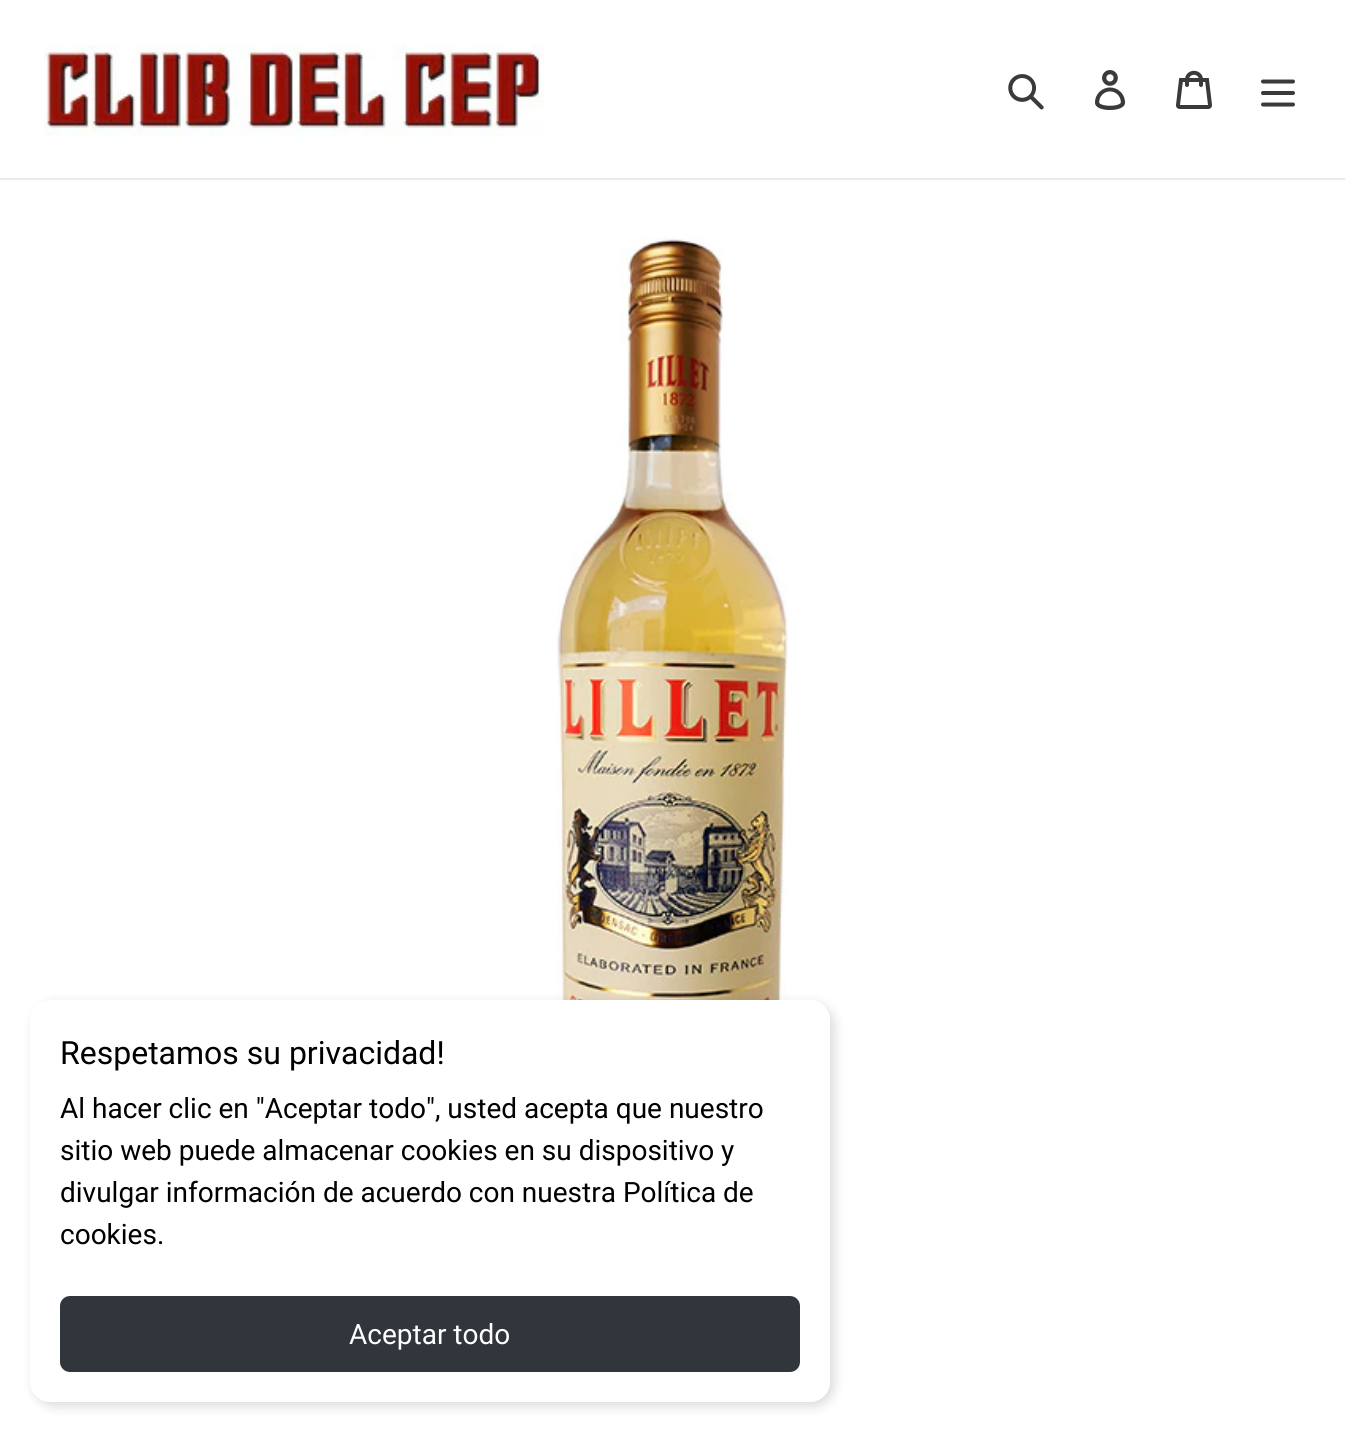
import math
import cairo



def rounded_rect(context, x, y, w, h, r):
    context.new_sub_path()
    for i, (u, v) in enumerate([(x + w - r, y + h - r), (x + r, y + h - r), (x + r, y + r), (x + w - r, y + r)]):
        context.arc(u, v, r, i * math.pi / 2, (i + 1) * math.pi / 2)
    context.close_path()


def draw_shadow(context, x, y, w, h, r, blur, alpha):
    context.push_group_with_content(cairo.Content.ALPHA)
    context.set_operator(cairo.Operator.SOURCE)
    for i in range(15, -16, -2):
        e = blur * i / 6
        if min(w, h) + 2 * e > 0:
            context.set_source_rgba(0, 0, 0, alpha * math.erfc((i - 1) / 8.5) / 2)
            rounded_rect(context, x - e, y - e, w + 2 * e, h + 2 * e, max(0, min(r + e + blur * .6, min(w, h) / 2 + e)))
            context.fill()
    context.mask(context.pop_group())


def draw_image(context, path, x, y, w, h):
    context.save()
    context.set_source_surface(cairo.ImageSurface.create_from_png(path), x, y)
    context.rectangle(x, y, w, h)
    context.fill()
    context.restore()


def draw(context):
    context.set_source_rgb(1, 1, 1)
    context.paint()
    context.set_source_rgb(235 / 255, 235 / 255, 235 / 255)
    context.rectangle(0, 178, 1345, 2)
    context.fill()
    draw_image(context, "images/1.png", 44, 44, 500, 93)
    draw_image(context, "images/2.png", 1008, 74, 36, 36)
    draw_image(context, "images/3.png", 1095, 70, 31, 40)
    draw_image(context, "images/4.png", 1176, 70, 36, 39)
    draw_image(context, "images/5.png", 1261, 79, 34, 28)
    draw_image(context, "images/6.png", 557, 237, 231, 763)
    context.set_source_rgb(0, 0, 0)
    draw_shadow(context, 34, 1004, 800, 402, 20, 6, 0.15)
    context.set_source_rgb(1, 1, 1)
    rounded_rect(context, 30, 1000, 800, 402, 20)
    context.fill()
    context.set_source_rgb(48 / 255, 54 / 255, 60 / 255)
    rounded_rect(context, 60, 1296, 740, 76, 10)
    context.fill()
    context.select_font_face("Roboto")
    context.set_font_size(32)
    context.set_source_rgb(0, 0, 0)
    context.move_to(60, 1064)
    context.show_text("Respetamos su privacidad!")
    context.set_font_size(28)
    context.move_to(60, 1118)
    context.show_text("Al hacer clic en \"Aceptar todo\", usted acepta que nuestro")
    context.move_to(60, 1160)
    context.show_text("sitio web puede almacenar cookies en su dispositivo y")
    context.move_to(60, 1202)
    context.show_text("divulgar información de acuerdo con nuestra Política de")
    context.move_to(60, 1244)
    context.show_text("cookies.")
    context.set_source_rgb(1, 1, 1)
    context.move_to(349, 1344)
    context.show_text("Aceptar todo")


surface = cairo.ImageSurface(cairo.Format.RGB24, 1345, 1431)
context = cairo.Context(surface)
options = cairo.FontOptions()
options.set_hint_metrics(cairo.HintMetrics.OFF)
options.set_hint_style(cairo.HintStyle.NONE)
context.set_font_options(options)
context.set_miter_limit(4)
draw(context)
surface.write_to_png("out.png")
